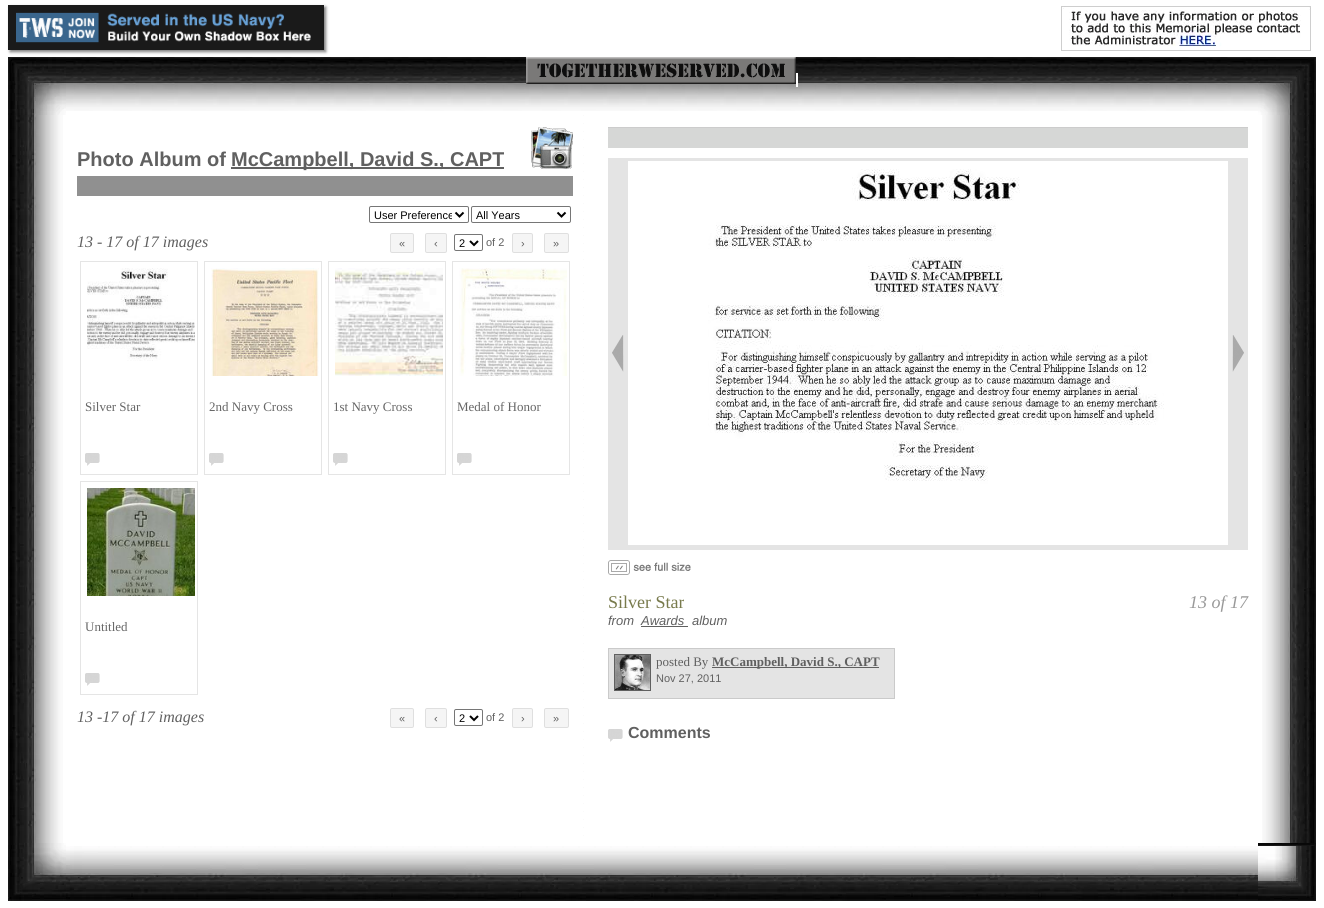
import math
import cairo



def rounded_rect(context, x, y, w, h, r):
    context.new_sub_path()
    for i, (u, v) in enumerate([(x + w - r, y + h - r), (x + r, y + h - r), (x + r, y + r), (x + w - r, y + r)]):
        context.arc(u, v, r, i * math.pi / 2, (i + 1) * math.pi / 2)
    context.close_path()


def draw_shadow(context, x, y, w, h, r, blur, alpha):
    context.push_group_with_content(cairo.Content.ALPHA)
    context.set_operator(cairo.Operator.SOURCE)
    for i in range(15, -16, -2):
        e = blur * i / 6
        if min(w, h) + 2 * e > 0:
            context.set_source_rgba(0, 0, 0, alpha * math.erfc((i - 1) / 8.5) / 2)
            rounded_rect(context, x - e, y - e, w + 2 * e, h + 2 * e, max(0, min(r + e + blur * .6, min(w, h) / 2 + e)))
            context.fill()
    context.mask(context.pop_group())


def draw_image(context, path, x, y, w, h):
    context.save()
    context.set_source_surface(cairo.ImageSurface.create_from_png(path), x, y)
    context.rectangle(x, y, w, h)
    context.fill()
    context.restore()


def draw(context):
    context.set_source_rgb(1, 1, 1)
    context.paint()
    draw_image(context, "images/4.png", 66, 57, 1192, 54)
    context.set_source_rgb(0, 0, 0)
    draw_shadow(context, 10, 7, 316, 45, 0, 1.5, 0.5)
    context.set_source_rgb(26 / 255, 26 / 255, 26 / 255)
    context.rectangle(8, 5, 316, 45)
    context.fill()
    draw_image(context, "images/1.png", 16, 12, 295, 31)
    draw_image(context, "images/2.png", 1061, 6, 250, 45)
    draw_image(context, "images/3.png", 8, 57, 58, 58)
    draw_image(context, "images/5.png", 526, 57, 270, 27)
    context.set_source_rgb(1, 1, 1)
    context.rectangle(796, 73, 2, 14)
    context.fill()
    draw_image(context, "images/6.png", 1258, 57, 58, 58)
    draw_image(context, "images/7.png", 8, 115, 55, 728)
    context.set_source_rgb(96 / 255, 96 / 255, 96 / 255)
    context.rectangle(231, 167, 273, 2)
    context.fill()
    draw_image(context, "images/8.png", 531, 127, 42, 42)
    context.set_source_rgb(144 / 255, 144 / 255, 144 / 255)
    context.rectangle(77, 176, 496, 20)
    context.fill()
    rounded_rect(context, 369.5, 206.5, 99, 16, 1.5)
    context.set_source_rgb(118 / 255, 118 / 255, 118 / 255)
    context.set_line_width(1)
    context.stroke()
    context.new_path()
    context.move_to(455.5, 212.5)
    context.line_to(459.5, 216.5)
    context.line_to(463.5, 212.5)
    context.set_source_rgb(0, 0, 0)
    context.set_line_width(2)
    context.stroke()
    rounded_rect(context, 471.5, 206.5, 99, 16, 1.5)
    context.set_source_rgb(118 / 255, 118 / 255, 118 / 255)
    context.set_line_width(1)
    context.stroke()
    context.new_path()
    context.move_to(557.5, 212.5)
    context.line_to(561.5, 216.5)
    context.line_to(565.5, 212.5)
    context.set_source_rgb(0, 0, 0)
    context.set_line_width(2)
    context.stroke()
    context.set_source_rgb(245 / 255, 245 / 255, 245 / 255)
    rounded_rect(context, 390.5, 233.5, 23, 19, 1.5)
    context.fill_preserve()
    context.set_source_rgb(223 / 255, 223 / 255, 223 / 255)
    context.set_line_width(1)
    context.stroke()
    context.set_source_rgb(245 / 255, 245 / 255, 245 / 255)
    rounded_rect(context, 425.5, 233.5, 21, 19, 1.5)
    context.fill_preserve()
    context.set_source_rgb(223 / 255, 223 / 255, 223 / 255)
    context.stroke()
    rounded_rect(context, 454.5, 234.5, 28, 16, 1.5)
    context.set_source_rgb(118 / 255, 118 / 255, 118 / 255)
    context.stroke()
    context.new_path()
    context.move_to(470, 241)
    context.line_to(474, 245)
    context.line_to(478, 241)
    context.set_source_rgb(0, 0, 0)
    context.set_line_width(2)
    context.stroke()
    context.set_source_rgb(245 / 255, 245 / 255, 245 / 255)
    rounded_rect(context, 512.5, 233.5, 20, 19, 1.5)
    context.fill_preserve()
    context.set_source_rgb(223 / 255, 223 / 255, 223 / 255)
    context.set_line_width(1)
    context.stroke()
    context.set_source_rgb(245 / 255, 245 / 255, 245 / 255)
    rounded_rect(context, 544.5, 233.5, 24, 19, 1.5)
    context.fill_preserve()
    context.set_source_rgb(223 / 255, 223 / 255, 223 / 255)
    context.stroke()
    context.rectangle(80.5, 261.5, 117, 213)
    context.set_source_rgb(229 / 255, 229 / 255, 229 / 255)
    context.stroke()
    draw_image(context, "images/9.png", 87, 268, 108, 93)
    draw_image(context, "images/10.png", 85, 453, 15, 13)
    context.rectangle(204.5, 261.5, 117, 213)
    context.stroke()
    draw_image(context, "images/11.png", 211, 268, 108, 108)
    draw_image(context, "images/10.png", 209, 453, 15, 13)
    context.rectangle(328.5, 261.5, 117, 213)
    context.stroke()
    draw_image(context, "images/12.png", 335, 268, 108, 108)
    draw_image(context, "images/10.png", 333, 453, 15, 13)
    context.rectangle(452.5, 261.5, 117, 213)
    context.stroke()
    draw_image(context, "images/13.png", 459, 268, 108, 108)
    draw_image(context, "images/10.png", 457, 453, 15, 13)
    context.rectangle(80.5, 481.5, 117, 213)
    context.stroke()
    draw_image(context, "images/14.png", 87, 488, 108, 108)
    draw_image(context, "images/10.png", 85, 673, 15, 13)
    context.set_source_rgb(245 / 255, 245 / 255, 245 / 255)
    rounded_rect(context, 390.5, 708.5, 23, 19, 1.5)
    context.fill_preserve()
    context.set_source_rgb(223 / 255, 223 / 255, 223 / 255)
    context.stroke()
    context.set_source_rgb(245 / 255, 245 / 255, 245 / 255)
    rounded_rect(context, 425.5, 708.5, 21, 19, 1.5)
    context.fill_preserve()
    context.set_source_rgb(223 / 255, 223 / 255, 223 / 255)
    context.stroke()
    rounded_rect(context, 454.5, 709.5, 28, 16, 1.5)
    context.set_source_rgb(118 / 255, 118 / 255, 118 / 255)
    context.stroke()
    context.new_path()
    context.move_to(470, 716)
    context.line_to(474, 720)
    context.line_to(478, 716)
    context.set_source_rgb(0, 0, 0)
    context.set_line_width(2)
    context.stroke()
    context.set_source_rgb(245 / 255, 245 / 255, 245 / 255)
    rounded_rect(context, 512.5, 708.5, 20, 19, 1.5)
    context.fill_preserve()
    context.set_source_rgb(223 / 255, 223 / 255, 223 / 255)
    context.set_line_width(1)
    context.stroke()
    context.set_source_rgb(245 / 255, 245 / 255, 245 / 255)
    rounded_rect(context, 544.5, 708.5, 24, 19, 1.5)
    context.fill_preserve()
    context.set_source_rgb(223 / 255, 223 / 255, 223 / 255)
    context.stroke()
    draw_image(context, "images/15.png", 583, 115, 1, 721)
    context.set_source_rgb(214 / 255, 215 / 255, 214 / 255)
    context.rectangle(608, 128, 640, 20)
    context.fill()
    context.set_source_rgb(204 / 255, 204 / 255, 204 / 255)
    context.rectangle(608, 127, 640, 1)
    context.fill()
    context.set_source_rgb(228 / 255, 228 / 255, 228 / 255)
    context.rectangle(608, 158, 640, 392)
    context.fill()
    draw_image(context, "images/16.png", 612, 335, 12, 37)
    draw_image(context, "images/17.png", 628, 161, 600, 384)
    draw_image(context, "images/18.png", 1232, 335, 12, 37)
    draw_image(context, "images/19.png", 608, 560, 83, 15)
    context.set_source_rgb(96 / 255, 96 / 255, 96 / 255)
    context.rectangle(641, 626, 47, 1)
    context.fill()
    context.set_source_rgb(228 / 255, 228 / 255, 228 / 255)
    context.rectangle(608.5, 648.5, 286, 50)
    context.fill_preserve()
    context.set_source_rgb(202 / 255, 202 / 255, 202 / 255)
    context.stroke()
    context.rectangle(614.5, 654.5, 36, 36)
    context.set_source_rgb(96 / 255, 96 / 255, 96 / 255)
    context.stroke()
    draw_image(context, "images/20.png", 615, 655, 35, 35)
    context.rectangle(712, 667, 167, 1)
    context.fill()
    draw_image(context, "images/10.png", 608, 729, 15, 13)
    draw_image(context, "images/21.png", 1262, 115, 54, 728)
    draw_image(context, "images/22.png", 8, 843, 58, 58)
    draw_image(context, "images/23.png", 66, 846, 1192, 55)
    draw_image(context, "images/24.png", 1258, 843, 58, 58)
    context.select_font_face("Liberation Sans", cairo.FontSlant.NORMAL, cairo.FontWeight.BOLD)
    context.set_font_size(20)
    context.move_to(77, 166)
    context.show_text("Photo Album of")
    context.move_to(231, 166)
    context.show_text("McCampbell, David S., CAPT")
    context.save()
    context.rectangle(374, 208, 78, 14)
    context.clip()
    context.select_font_face("Liberation Sans")
    context.set_font_size(11)
    context.set_source_rgb(0, 0, 0)
    context.move_to(374, 219)
    context.show_text("User Preference")
    context.restore()
    context.select_font_face("Liberation Sans")
    context.set_font_size(11)
    context.set_source_rgb(0, 0, 0)
    context.move_to(476, 219)
    context.show_text("All Years")
    context.select_font_face("Liberation Serif", cairo.FontSlant.ITALIC)
    context.set_font_size(16)
    context.set_source_rgb(96 / 255, 96 / 255, 96 / 255)
    context.move_to(77, 247)
    context.show_text("13 - 17 of 17 images")
    context.select_font_face("Liberation Sans")
    context.set_font_size(11)
    context.move_to(399, 247)
    context.show_text("«")
    context.move_to(434, 247)
    context.show_text("‹")
    context.set_source_rgb(0, 0, 0)
    context.move_to(459, 247)
    context.show_text("2")
    context.set_source_rgb(96 / 255, 96 / 255, 96 / 255)
    context.move_to(486, 246)
    context.show_text("of 2")
    context.move_to(521, 247)
    context.show_text("›")
    context.move_to(553, 247)
    context.show_text("»")
    context.select_font_face("Liberation Serif")
    context.set_font_size(13)
    context.set_source_rgb(102 / 255, 102 / 255, 102 / 255)
    context.move_to(85, 411)
    context.show_text("Silver Star")
    context.move_to(209, 411)
    context.show_text("2nd Navy Cross")
    context.move_to(333, 411)
    context.show_text("1st Navy Cross")
    context.move_to(457, 411)
    context.show_text("Medal of Honor")
    context.move_to(85, 631)
    context.show_text("Untitled")
    context.select_font_face("Liberation Serif", cairo.FontSlant.ITALIC)
    context.set_font_size(16)
    context.set_source_rgb(96 / 255, 96 / 255, 96 / 255)
    context.move_to(77, 722)
    context.show_text("13 -17 of 17 images")
    context.select_font_face("Liberation Sans")
    context.set_font_size(11)
    context.move_to(399, 722)
    context.show_text("«")
    context.move_to(434, 722)
    context.show_text("‹")
    context.set_source_rgb(0, 0, 0)
    context.move_to(459, 722)
    context.show_text("2")
    context.set_source_rgb(96 / 255, 96 / 255, 96 / 255)
    context.move_to(486, 721)
    context.show_text("of 2")
    context.move_to(521, 722)
    context.show_text("›")
    context.move_to(553, 722)
    context.show_text("»")
    context.select_font_face("Liberation Serif")
    context.set_font_size(18)
    context.set_source_rgb(120 / 255, 122 / 255, 76 / 255)
    context.move_to(608, 608)
    context.show_text("Silver Star")
    context.select_font_face("Liberation Serif", cairo.FontSlant.ITALIC)
    context.set_source_rgb(153 / 255, 153 / 255, 153 / 255)
    context.move_to(1189, 608)
    context.show_text("13 of 17")
    context.select_font_face("Liberation Sans", cairo.FontSlant.ITALIC)
    context.set_font_size(13)
    context.set_source_rgb(96 / 255, 96 / 255, 96 / 255)
    context.move_to(608, 625)
    context.show_text("from")
    context.move_to(641, 625)
    context.show_text("Awards")
    context.move_to(692, 625)
    context.show_text("album")
    context.select_font_face("Liberation Serif")
    context.move_to(656, 666)
    context.show_text("posted By")
    context.select_font_face("Liberation Serif", cairo.FontSlant.NORMAL, cairo.FontWeight.BOLD)
    context.move_to(712, 666)
    context.show_text("McCampbell, David S., CAPT")
    context.select_font_face("Liberation Sans")
    context.set_font_size(11)
    context.move_to(656, 682)
    context.show_text("Nov 27, 2011")
    context.select_font_face("Liberation Sans", cairo.FontSlant.NORMAL, cairo.FontWeight.BOLD)
    context.set_font_size(16)
    context.move_to(628, 738)
    context.show_text("Comments")


surface = cairo.ImageSurface(cairo.Format.RGB24, 1324, 908)
context = cairo.Context(surface)
options = cairo.FontOptions()
options.set_hint_metrics(cairo.HintMetrics.OFF)
options.set_hint_style(cairo.HintStyle.NONE)
context.set_font_options(options)
context.set_miter_limit(4)
draw(context)
surface.write_to_png("out.png")
